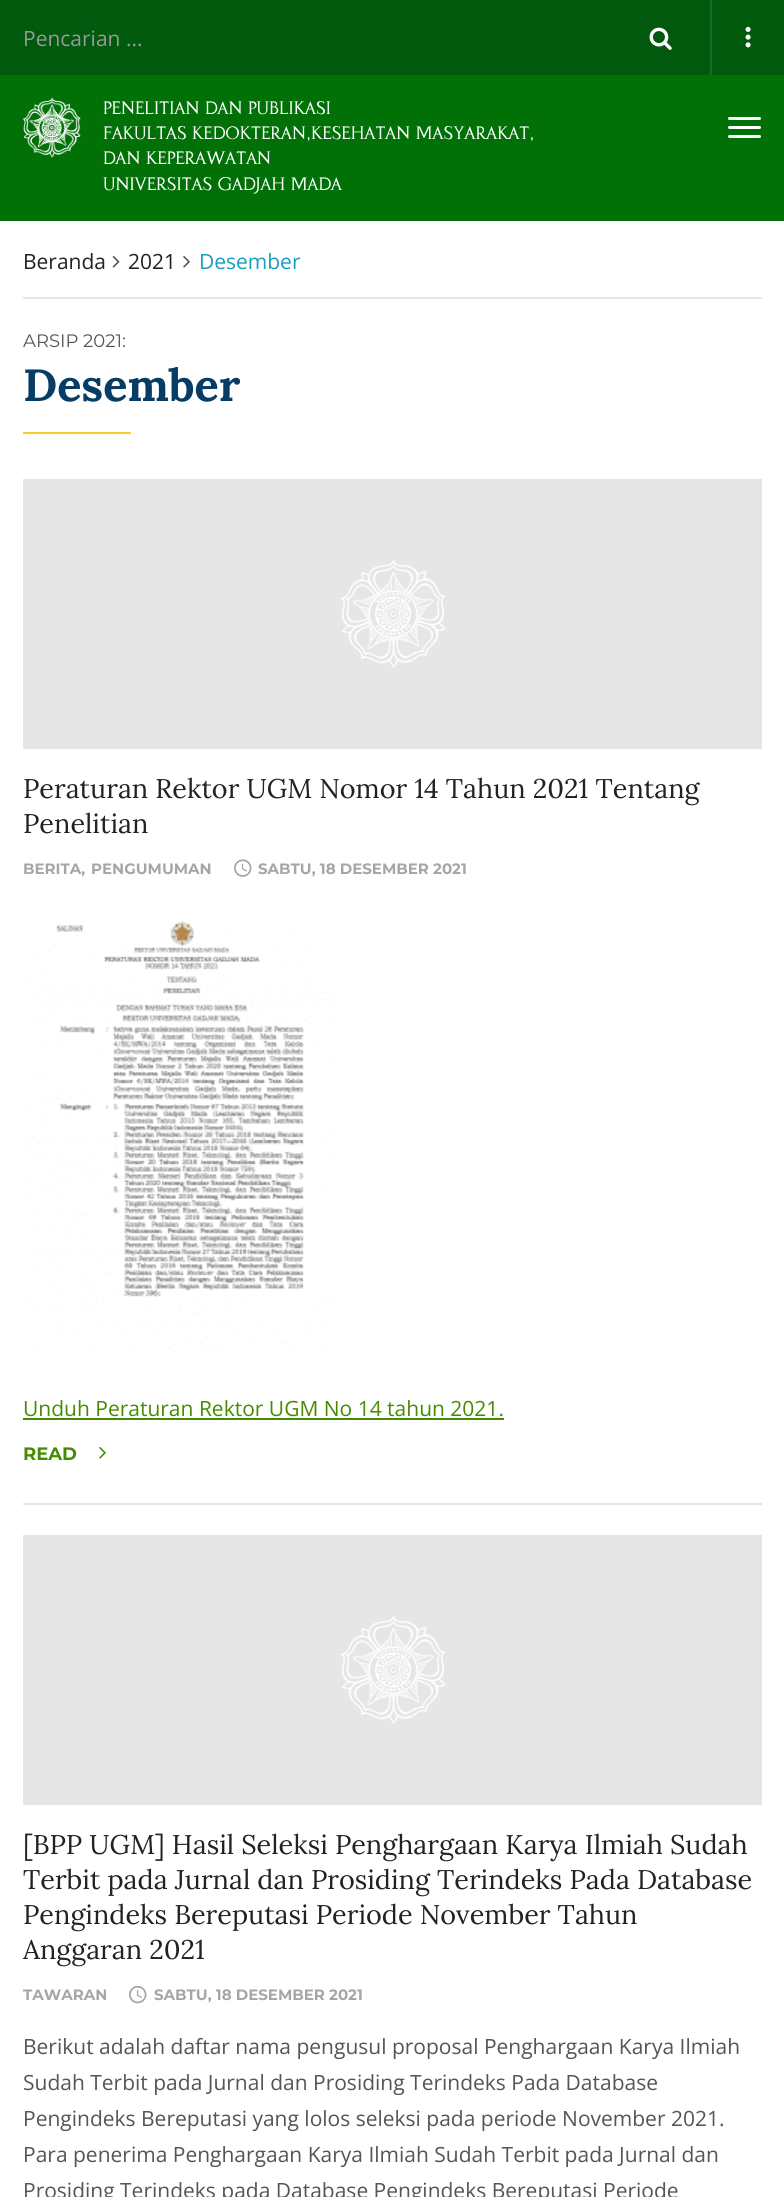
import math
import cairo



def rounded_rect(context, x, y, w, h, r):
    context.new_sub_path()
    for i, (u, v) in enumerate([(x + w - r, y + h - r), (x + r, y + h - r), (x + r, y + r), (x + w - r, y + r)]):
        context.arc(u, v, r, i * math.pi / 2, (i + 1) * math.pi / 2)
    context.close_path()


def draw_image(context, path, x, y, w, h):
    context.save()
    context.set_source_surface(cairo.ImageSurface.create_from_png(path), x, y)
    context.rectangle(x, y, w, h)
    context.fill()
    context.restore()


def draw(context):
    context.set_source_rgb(1, 1, 1)
    context.paint()
    context.set_source_rgb(0, 112 / 255, 7 / 255)
    context.rectangle(0, 75, 784, 146)
    context.fill()
    context.set_source_rgb(0, 89 / 255, 13 / 255)
    context.rectangle(0, 0, 784, 75)
    context.fill()
    draw_image(context, "images/1.png", 649, 27, 23, 23)
    context.set_source_rgb(26 / 255, 106 / 255, 37 / 255)
    context.rectangle(710, 0, 2, 75)
    context.fill()
    draw_image(context, "images/2.png", 745, 26, 6, 22)
    draw_image(context, "images/3.png", 22, 97, 59, 61)
    context.set_source_rgb(1, 1, 1)
    rounded_rect(context, 728, 117, 33, 3, 1.5)
    context.fill()
    rounded_rect(context, 728, 126, 33, 3, 1.5)
    context.fill()
    rounded_rect(context, 728, 135, 33, 3, 1.5)
    context.fill()
    context.set_source_rgb(230 / 255, 230 / 255, 230 / 255)
    context.rectangle(23, 297, 739, 2)
    context.fill()
    draw_image(context, "images/4.png", 112, 256, 8, 12)
    draw_image(context, "images/5.png", 183, 256, 7, 12)
    context.set_source_rgb(253 / 255, 203 / 255, 44 / 255)
    context.rectangle(23, 432, 108, 2)
    context.fill()
    context.set_source_rgb(230 / 255, 230 / 255, 230 / 255)
    context.rectangle(23, 1503, 739, 2)
    context.fill()
    context.rectangle(23, 479, 739, 270)
    context.fill()
    draw_image(context, "images/6.png", 340, 559, 106, 109)
    draw_image(context, "images/7.png", 234, 859, 18, 18)
    draw_image(context, "images/8.png", 26, 915, 311, 446)
    context.set_source_rgb(70 / 255, 140 / 255, 0)
    context.rectangle(23, 1418, 481, 2)
    context.fill()
    draw_image(context, "images/9.png", 99, 1447, 7, 12)
    context.set_source_rgb(230 / 255, 230 / 255, 230 / 255)
    context.rectangle(23, 1535, 739, 270)
    context.fill()
    draw_image(context, "images/6.png", 340, 1615, 106, 109)
    draw_image(context, "images/10.png", 129, 1985, 18, 19)
    context.select_font_face("Open Sans")
    context.set_font_size(21)
    context.set_source_rgb(153 / 255, 153 / 255, 153 / 255)
    context.move_to(23, 46)
    context.show_text("Pencarian ...")
    context.select_font_face("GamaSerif")
    context.set_font_size(18)
    context.set_source_rgb(1, 1, 1)
    context.move_to(103, 114)
    context.show_text("PENELITIAN DAN PUBLIKASI")
    context.move_to(103, 139)
    context.show_text("FAKULTAS KEDOKTERAN,KESEHATAN MASYARAKAT,")
    context.move_to(103, 164)
    context.show_text("DAN KEPERAWATAN")
    context.move_to(103, 190)
    context.show_text("UNIVERSITAS GADJAH MADA")
    context.select_font_face("Open Sans")
    context.set_font_size(21)
    context.set_source_rgb(34 / 255, 34 / 255, 34 / 255)
    context.move_to(23, 269)
    context.show_text("Beranda")
    context.move_to(128, 269)
    context.show_text("2021")
    context.set_source_rgb(20 / 255, 159 / 255, 192 / 255)
    context.move_to(199, 269)
    context.show_text("Desember")
    context.select_font_face("Montserrat")
    context.set_font_size(18)
    context.set_source_rgb(85 / 255, 85 / 255, 85 / 255)
    context.move_to(23, 347)
    context.show_text("ARSIP 2021:")
    context.select_font_face("Lora", cairo.FontSlant.NORMAL, cairo.FontWeight.BOLD)
    context.set_font_size(45)
    context.set_source_rgb(7 / 255, 60 / 255, 100 / 255)
    context.move_to(23, 401)
    context.show_text("Desember")
    context.select_font_face("Lora")
    context.set_font_size(27)
    context.set_source_rgb(34 / 255, 34 / 255, 34 / 255)
    context.move_to(23, 798)
    context.show_text("Peraturan Rektor UGM Nomor 14 Tahun 2021 Tentang")
    context.move_to(23, 833)
    context.show_text("Penelitian")
    context.select_font_face("Montserrat", cairo.FontSlant.NORMAL, cairo.FontWeight.BOLD)
    context.set_font_size(15)
    context.set_source_rgb(166 / 255, 166 / 255, 166 / 255)
    context.move_to(23, 874)
    context.show_text("BERITA,")
    context.move_to(91, 874)
    context.show_text("PENGUMUMAN")
    context.move_to(258, 874)
    context.show_text("SABTU, 18 DESEMBER 2021")
    context.select_font_face("Open Sans")
    context.set_font_size(21)
    context.set_source_rgb(70 / 255, 140 / 255, 0)
    context.move_to(23, 1416)
    context.show_text("Unduh Peraturan Rektor UGM No 14 tahun 2021.")
    context.select_font_face("Montserrat", cairo.FontSlant.NORMAL, cairo.FontWeight.BOLD)
    context.set_font_size(18)
    context.move_to(23, 1460)
    context.show_text("READ")
    context.select_font_face("Lora")
    context.set_font_size(27)
    context.set_source_rgb(34 / 255, 34 / 255, 34 / 255)
    context.move_to(23, 1854)
    context.show_text("[BPP UGM] Hasil Seleksi Penghargaan Karya Ilmiah Sudah")
    context.move_to(23, 1889)
    context.show_text("Terbit pada Jurnal dan Prosiding Terindeks Pada Database")
    context.move_to(23, 1924)
    context.show_text("Pengindeks Bereputasi Periode November Tahun")
    context.move_to(23, 1959)
    context.show_text("Anggaran 2021")
    context.select_font_face("Montserrat", cairo.FontSlant.NORMAL, cairo.FontWeight.BOLD)
    context.set_font_size(15)
    context.set_source_rgb(166 / 255, 166 / 255, 166 / 255)
    context.move_to(23, 2000)
    context.show_text("TAWARAN")
    context.move_to(154, 2000)
    context.show_text("SABTU, 18 DESEMBER 2021")
    context.select_font_face("Open Sans")
    context.set_font_size(21)
    context.set_source_rgb(85 / 255, 85 / 255, 85 / 255)
    context.move_to(23, 2054)
    context.show_text("Berikut adalah daftar nama pengusul proposal Penghargaan Karya Ilmiah")
    context.move_to(23, 2090)
    context.show_text("Sudah Terbit pada Jurnal dan Prosiding Terindeks Pada Database")
    context.move_to(23, 2126)
    context.show_text("Pengindeks Bereputasi yang lolos seleksi pada periode November 2021.")
    context.move_to(23, 2162)
    context.show_text("Para penerima Penghargaan Karya Ilmiah Sudah Terbit pada Jurnal dan")
    context.move_to(23, 2198)
    context.show_text("Prosiding Terindeks pada Database Pengindeks Bereputasi Periode")


surface = cairo.ImageSurface(cairo.Format.RGB24, 784, 2197)
context = cairo.Context(surface)
options = cairo.FontOptions()
options.set_hint_metrics(cairo.HintMetrics.OFF)
options.set_hint_style(cairo.HintStyle.NONE)
context.set_font_options(options)
context.set_miter_limit(4)
draw(context)
surface.write_to_png("out.png")
